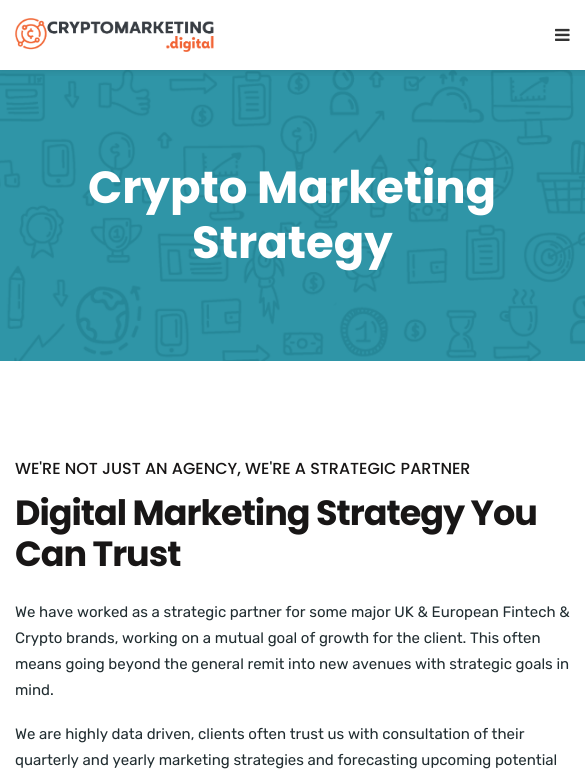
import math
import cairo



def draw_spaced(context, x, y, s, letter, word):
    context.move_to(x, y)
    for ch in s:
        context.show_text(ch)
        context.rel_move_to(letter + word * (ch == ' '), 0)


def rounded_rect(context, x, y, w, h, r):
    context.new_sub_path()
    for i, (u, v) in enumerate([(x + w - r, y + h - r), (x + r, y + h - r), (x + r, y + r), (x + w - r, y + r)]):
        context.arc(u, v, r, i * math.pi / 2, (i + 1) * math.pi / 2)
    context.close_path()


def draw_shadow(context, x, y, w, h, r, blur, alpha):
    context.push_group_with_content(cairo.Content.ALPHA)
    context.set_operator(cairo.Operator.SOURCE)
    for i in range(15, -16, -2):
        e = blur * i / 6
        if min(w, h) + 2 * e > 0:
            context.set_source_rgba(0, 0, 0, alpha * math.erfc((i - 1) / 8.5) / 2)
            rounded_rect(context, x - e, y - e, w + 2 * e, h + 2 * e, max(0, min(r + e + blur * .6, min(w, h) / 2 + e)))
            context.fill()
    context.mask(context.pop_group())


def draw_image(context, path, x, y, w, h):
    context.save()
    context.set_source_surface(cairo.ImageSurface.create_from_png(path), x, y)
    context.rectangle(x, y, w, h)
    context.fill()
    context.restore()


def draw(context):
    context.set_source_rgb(1, 1, 1)
    context.paint()
    draw_image(context, "images/3.png", 0, 70, 585, 291)
    context.save()
    context.rectangle(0, 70, 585, 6)
    context.clip()
    context.set_source_rgb(0, 0, 0)
    draw_shadow(context, 0, 0, 585, 70, 0, 5, 0.15)
    context.restore()
    draw_image(context, "images/1.png", 15, 18, 199, 34)
    draw_image(context, "images/2.png", 555, 28, 15, 13)
    context.select_font_face("Poppins", cairo.FontSlant.NORMAL, cairo.FontWeight.BOLD)
    context.set_font_size(45)
    context.set_source_rgb(1, 1, 1)
    context.move_to(88, 203)
    context.show_text("Crypto Marketing")
    context.move_to(192, 258)
    context.show_text("Strategy")
    context.select_font_face("Poppins Medium")
    context.set_font_size(16)
    context.set_source_rgb(24 / 255, 22 / 255, 22 / 255)
    context.move_to(15, 474)
    context.show_text("WE'RE NOT JUST AN AGENCY, WE'RE A STRATEGIC PARTNER")
    context.select_font_face("Poppins", cairo.FontSlant.NORMAL, cairo.FontWeight.BOLD)
    context.set_font_size(35)
    draw_spaced(context, 15, 525, "Digital Marketing Strategy You", -1, 0)
    draw_spaced(context, 15, 566, "Can Trust", -1, 0)
    context.select_font_face("Rubik")
    context.set_font_size(15)
    context.set_source_rgb(33 / 255, 45 / 255, 49 / 255)
    context.move_to(15, 617)
    context.show_text("We have worked as a strategic partner for some major UK & European Fintech &")
    context.move_to(15, 643)
    context.show_text("Crypto brands, working on a mutual goal of growth for the client. This often")
    context.move_to(15, 669)
    context.show_text("means going beyond the general remit into new avenues with strategic goals in")
    context.move_to(15, 695)
    context.show_text("mind.")
    context.move_to(15, 739)
    context.show_text("We are highly data driven, clients often trust us with consultation of their")
    context.move_to(15, 765)
    context.show_text("quarterly and yearly marketing strategies and forecasting upcoming potential")


surface = cairo.ImageSurface(cairo.Format.RGB24, 585, 783)
context = cairo.Context(surface)
options = cairo.FontOptions()
options.set_hint_metrics(cairo.HintMetrics.OFF)
options.set_hint_style(cairo.HintStyle.NONE)
context.set_font_options(options)
context.set_miter_limit(4)
draw(context)
surface.write_to_png("out.png")
